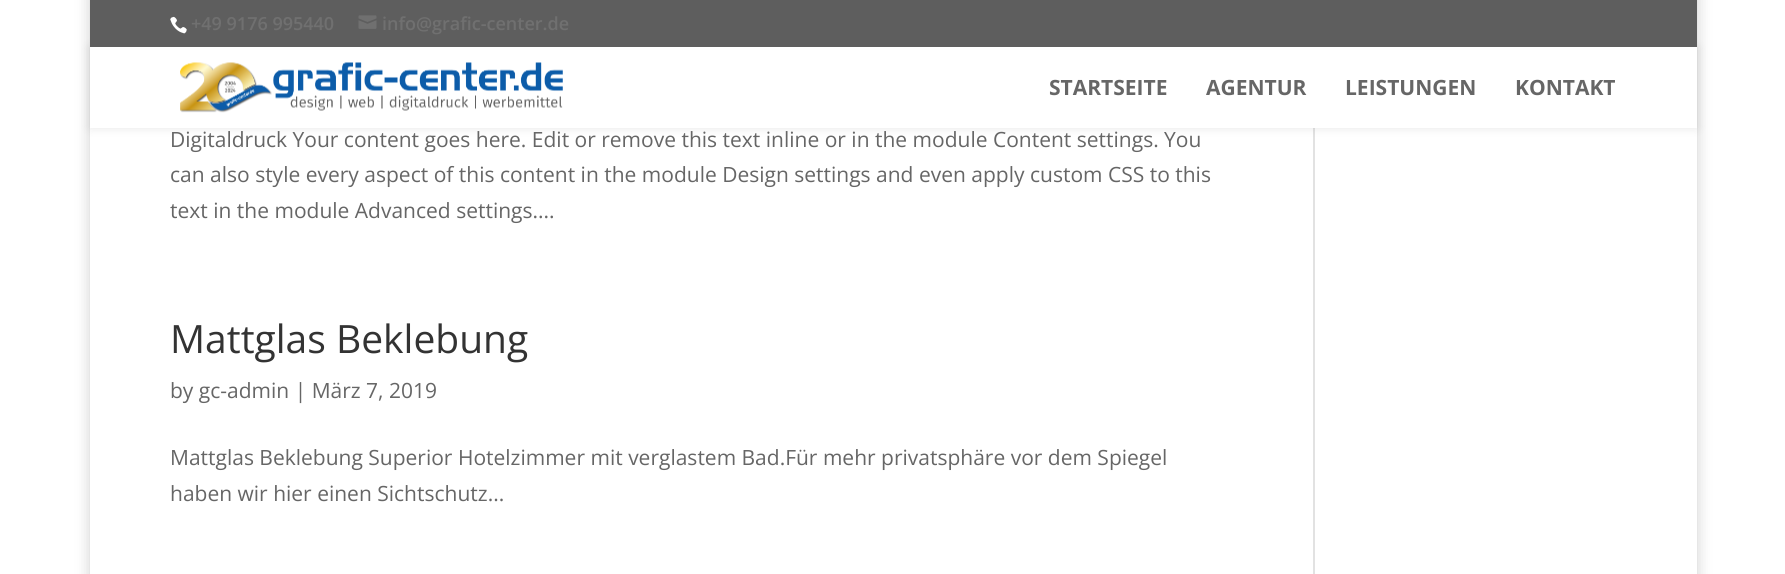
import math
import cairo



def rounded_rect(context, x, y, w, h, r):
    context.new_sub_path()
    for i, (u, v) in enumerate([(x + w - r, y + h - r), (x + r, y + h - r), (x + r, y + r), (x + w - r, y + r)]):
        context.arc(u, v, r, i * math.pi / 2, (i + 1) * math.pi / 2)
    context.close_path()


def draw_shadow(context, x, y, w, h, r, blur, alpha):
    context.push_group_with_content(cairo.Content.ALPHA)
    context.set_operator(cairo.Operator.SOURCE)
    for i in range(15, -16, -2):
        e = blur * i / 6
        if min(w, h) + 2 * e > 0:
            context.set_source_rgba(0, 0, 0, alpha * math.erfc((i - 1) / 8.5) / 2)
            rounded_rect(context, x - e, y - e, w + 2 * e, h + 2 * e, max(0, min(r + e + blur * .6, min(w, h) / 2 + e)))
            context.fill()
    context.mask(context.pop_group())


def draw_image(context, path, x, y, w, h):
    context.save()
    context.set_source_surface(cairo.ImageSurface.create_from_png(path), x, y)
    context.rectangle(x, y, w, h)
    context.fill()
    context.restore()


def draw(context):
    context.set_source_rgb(1, 1, 1)
    context.paint()
    context.set_source_rgb(0, 0, 0)
    draw_shadow(context, 90, -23, 1607, 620, 0, 7.5, 0.2)
    context.set_source_rgb(1, 1, 1)
    context.rectangle(90, 128, 1607, 446)
    context.fill()
    context.set_source_rgb(226 / 255, 226 / 255, 226 / 255)
    context.rectangle(1313, 128, 2, 446)
    context.fill()
    context.set_source_rgb(0, 0, 0)
    draw_shadow(context, 90, 47, 1607, 81, 0, 5, 0.1)
    context.set_source_rgb(94 / 255, 94 / 255, 94 / 255)
    context.rectangle(90, 0, 1607, 47)
    context.fill()
    draw_image(context, "images/1.png", 170, 16, 17, 18)
    draw_image(context, "images/2.png", 358, 15, 19, 14)
    context.set_source_rgb(1, 1, 1)
    context.rectangle(90, 47, 1607, 81)
    context.fill()
    draw_image(context, "images/3.png", 180, 62, 383, 51)
    context.select_font_face("Open Sans SemiBold")
    context.set_font_size(18)
    context.set_source_rgb(112 / 255, 112 / 255, 112 / 255)
    context.move_to(191, 30)
    context.show_text("+49 9176 995440")
    context.move_to(382, 30)
    context.show_text("info@grafic-center.de")
    context.select_font_face("Open Sans", cairo.FontSlant.NORMAL, cairo.FontWeight.BOLD)
    context.set_font_size(21)
    context.set_source_rgb(102 / 255, 102 / 255, 102 / 255)
    context.move_to(1049, 95)
    context.show_text("STARTSEITE")
    context.move_to(1206, 95)
    context.show_text("AGENTUR")
    context.move_to(1345, 95)
    context.show_text("LEISTUNGEN")
    context.move_to(1515, 95)
    context.show_text("KONTAKT")
    context.select_font_face("Open Sans")
    context.move_to(170, 147)
    context.show_text("Digitaldruck Your content goes here. Edit or remove this text inline or in the module Content settings. You")
    context.move_to(170, 182)
    context.show_text("can also style every aspect of this content in the module Design settings and even apply custom CSS to this")
    context.move_to(170, 218)
    context.show_text("text in the module Advanced settings....")
    context.set_font_size(39)
    context.set_source_rgb(51 / 255, 51 / 255, 51 / 255)
    context.move_to(170, 353)
    context.show_text("Mattglas Beklebung")
    context.set_font_size(21)
    context.set_source_rgb(102 / 255, 102 / 255, 102 / 255)
    context.move_to(170, 398)
    context.show_text("by gc-admin | März 7, 2019")
    context.move_to(170, 465)
    context.show_text("Mattglas Beklebung Superior Hotelzimmer mit verglastem Bad.Für mehr privatsphäre vor dem Spiegel")
    context.move_to(170, 501)
    context.show_text("haben wir hier einen Sichtschutz...")


surface = cairo.ImageSurface(cairo.Format.RGB24, 1785, 574)
context = cairo.Context(surface)
options = cairo.FontOptions()
options.set_hint_metrics(cairo.HintMetrics.OFF)
options.set_hint_style(cairo.HintStyle.NONE)
context.set_font_options(options)
context.set_miter_limit(4)
draw(context)
surface.write_to_png("out.png")
